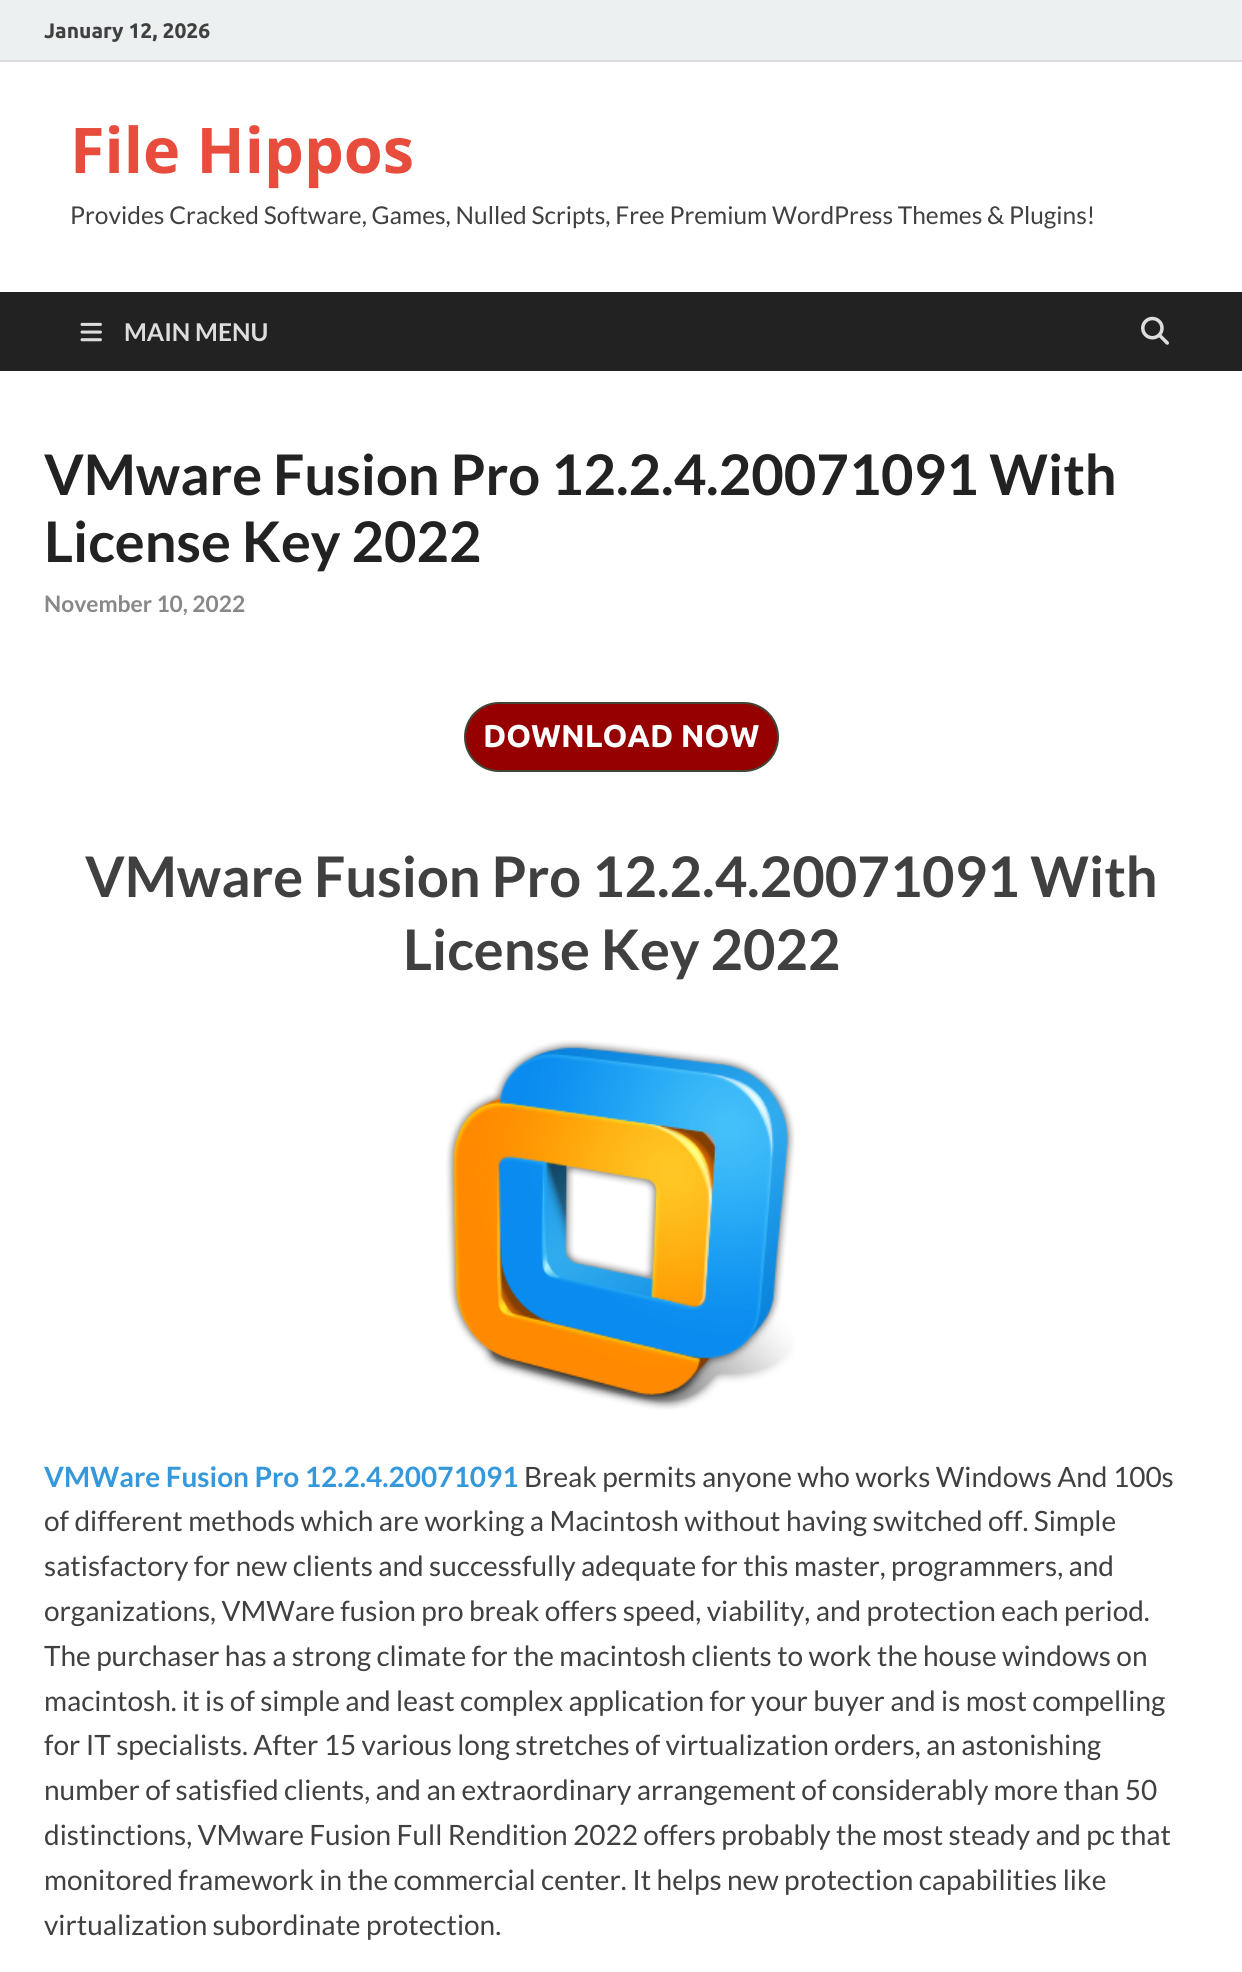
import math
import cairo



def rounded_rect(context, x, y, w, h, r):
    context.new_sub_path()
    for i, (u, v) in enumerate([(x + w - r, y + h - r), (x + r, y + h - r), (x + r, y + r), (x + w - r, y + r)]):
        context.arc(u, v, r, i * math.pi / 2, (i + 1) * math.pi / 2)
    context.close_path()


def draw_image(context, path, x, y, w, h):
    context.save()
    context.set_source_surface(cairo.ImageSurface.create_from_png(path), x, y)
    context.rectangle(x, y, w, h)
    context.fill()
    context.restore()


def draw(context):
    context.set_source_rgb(1, 1, 1)
    context.paint()
    context.set_source_rgb(236 / 255, 240 / 255, 241 / 255)
    context.rectangle(0, 0, 1242, 60)
    context.fill()
    context.set_source_rgb(221 / 255, 221 / 255, 221 / 255)
    context.rectangle(0, 60, 1242, 2)
    context.fill()
    context.set_source_rgb(34 / 255, 34 / 255, 34 / 255)
    context.rectangle(0, 292, 1242, 79)
    context.fill()
    draw_image(context, "images/1.png", 80, 322, 22, 20)
    draw_image(context, "images/2.png", 1141, 316, 28, 29)
    context.set_source_rgb(150 / 255, 0, 0)
    rounded_rect(context, 465, 703, 313, 68, 34)
    context.fill_preserve()
    context.set_source_rgb(65 / 255, 69 / 255, 54 / 255)
    context.stroke()
    draw_image(context, "images/3.png", 446, 1040, 349, 370)
    context.select_font_face("Ubuntu", cairo.FontSlant.NORMAL, cairo.FontWeight.BOLD)
    context.set_font_size(21)
    context.set_source_rgb(64 / 255, 64 / 255, 64 / 255)
    context.move_to(44, 38)
    context.show_text("January 12, 2026")
    context.select_font_face("Open Sans", cairo.FontSlant.NORMAL, cairo.FontWeight.BOLD)
    context.set_font_size(63)
    context.set_source_rgb(231 / 255, 76 / 255, 60 / 255)
    context.move_to(70, 173)
    context.show_text("File Hippos")
    context.select_font_face("Lato")
    context.set_font_size(24.5)
    context.set_source_rgb(64 / 255, 64 / 255, 64 / 255)
    context.move_to(70, 224)
    context.show_text("Provides Cracked Software, Games, Nulled Scripts, Free Premium WordPress Themes & Plugins!")
    context.select_font_face("Lato", cairo.FontSlant.NORMAL, cairo.FontWeight.BOLD)
    context.set_source_rgb(221 / 255, 221 / 255, 221 / 255)
    context.move_to(124, 341)
    context.show_text("MAIN MENU")
    context.set_font_size(56)
    context.set_source_rgb(34 / 255, 34 / 255, 34 / 255)
    context.move_to(44, 495)
    context.show_text("VMware Fusion Pro 12.2.4.20071091 With")
    context.move_to(44, 562)
    context.show_text("License Key 2022")
    context.set_font_size(22.75)
    context.set_source_rgb(136 / 255, 136 / 255, 136 / 255)
    context.move_to(44, 612)
    context.show_text("November 10, 2022")
    context.select_font_face("Ubuntu", cairo.FontSlant.NORMAL, cairo.FontWeight.BOLD)
    context.set_font_size(31.5)
    context.set_source_rgb(1, 1, 1)
    context.move_to(483, 747)
    context.show_text("DOWNLOAD NOW")
    context.select_font_face("Lato", cairo.FontSlant.NORMAL, cairo.FontWeight.BOLD)
    context.set_font_size(56)
    context.set_source_rgb(64 / 255, 64 / 255, 64 / 255)
    context.move_to(85, 897)
    context.show_text("VMware Fusion Pro 12.2.4.20071091 With")
    context.move_to(403, 970)
    context.show_text("License Key 2022")
    context.set_font_size(28)
    context.set_source_rgb(52 / 255, 152 / 255, 219 / 255)
    context.move_to(44, 1487)
    context.show_text("VMWare Fusion Pro 12.2.4.20071091")
    context.select_font_face("Lato")
    context.set_source_rgb(64 / 255, 64 / 255, 64 / 255)
    context.move_to(524, 1487)
    context.show_text("Break permits anyone who works Windows And 100s")
    context.move_to(44, 1531)
    context.show_text("of different methods which are working a Macintosh without having switched off. Simple")
    context.move_to(44, 1576)
    context.show_text("satisfactory for new clients and successfully adequate for this master, programmers, and")
    context.move_to(44, 1621)
    context.show_text("organizations, VMWare fusion pro break offers speed, viability, and protection each period.")
    context.move_to(44, 1666)
    context.show_text("The purchaser has a strong climate for the macintosh clients to work the house windows on")
    context.move_to(44, 1711)
    context.show_text("macintosh. it is of simple and least complex application for your buyer and is most compelling")
    context.move_to(44, 1755)
    context.show_text("for IT specialists. After 15 various long stretches of virtualization orders, an astonishing")
    context.move_to(44, 1800)
    context.show_text("number of satisfied clients, and an extraordinary arrangement of considerably more than 50")
    context.move_to(44, 1845)
    context.show_text("distinctions, VMware Fusion Full Rendition 2022 offers probably the most steady and pc that")
    context.move_to(44, 1890)
    context.show_text("monitored framework in the commercial center. It helps new protection capabilities like")
    context.move_to(44, 1935)
    context.show_text("virtualization subordinate protection.")


surface = cairo.ImageSurface(cairo.Format.RGB24, 1242, 1972)
context = cairo.Context(surface)
options = cairo.FontOptions()
options.set_hint_metrics(cairo.HintMetrics.OFF)
options.set_hint_style(cairo.HintStyle.NONE)
context.set_font_options(options)
context.set_miter_limit(4)
draw(context)
surface.write_to_png("out.png")
